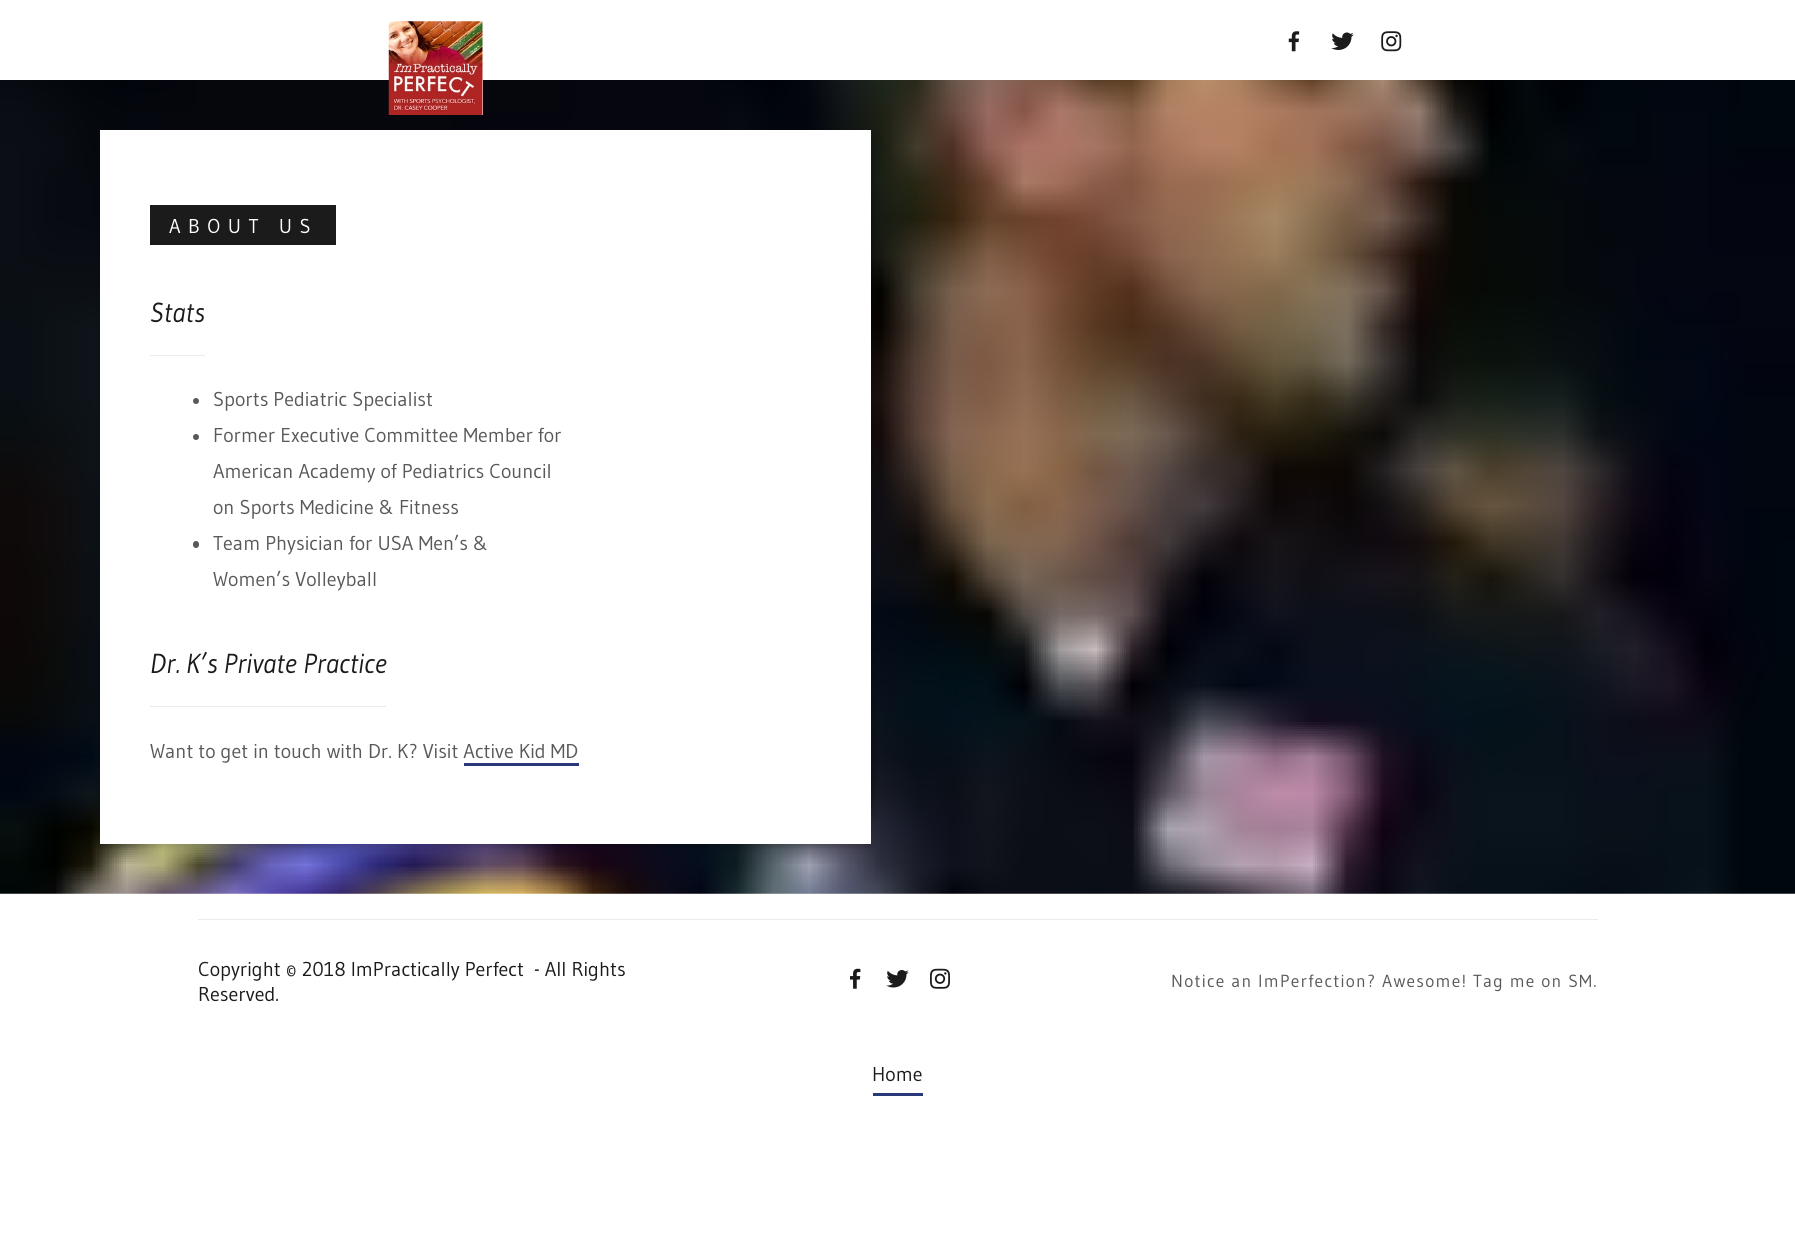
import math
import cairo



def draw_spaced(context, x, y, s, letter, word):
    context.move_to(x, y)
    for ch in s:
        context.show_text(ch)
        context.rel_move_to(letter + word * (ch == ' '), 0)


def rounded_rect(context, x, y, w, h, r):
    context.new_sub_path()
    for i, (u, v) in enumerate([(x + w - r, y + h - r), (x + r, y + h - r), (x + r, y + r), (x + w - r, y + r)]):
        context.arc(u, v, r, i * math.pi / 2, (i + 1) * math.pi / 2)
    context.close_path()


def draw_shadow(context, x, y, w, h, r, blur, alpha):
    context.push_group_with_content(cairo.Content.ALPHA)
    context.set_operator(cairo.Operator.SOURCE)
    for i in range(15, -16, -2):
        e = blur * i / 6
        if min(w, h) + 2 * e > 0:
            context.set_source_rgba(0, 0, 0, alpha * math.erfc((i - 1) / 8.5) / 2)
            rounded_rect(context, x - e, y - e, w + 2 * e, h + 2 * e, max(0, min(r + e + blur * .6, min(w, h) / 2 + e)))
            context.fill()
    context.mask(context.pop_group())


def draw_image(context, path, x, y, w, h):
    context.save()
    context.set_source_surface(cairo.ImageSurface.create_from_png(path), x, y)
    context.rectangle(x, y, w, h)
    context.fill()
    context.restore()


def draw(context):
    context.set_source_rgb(1, 1, 1)
    context.paint()
    draw_image(context, "images/5.png", 0, 80, 1795, 814)
    context.set_source_rgb(1, 1, 1)
    context.rectangle(389, 80, 94, 35)
    context.fill()
    draw_image(context, "images/1.png", 388, 21, 95, 94)
    draw_image(context, "images/2.png", 1288, 31, 12, 21)
    draw_image(context, "images/3.png", 1331, 32, 23, 18)
    draw_image(context, "images/4.png", 1381, 31, 21, 21)
    context.set_source_rgb(0, 0, 0)
    draw_shadow(context, 100, 133, 771, 713, 0, 4, 0.2)
    context.set_source_rgb(1, 1, 1)
    context.rectangle(100, 130, 771, 714)
    context.fill()
    context.set_source_rgb(27 / 255, 27 / 255, 27 / 255)
    context.rectangle(150, 205, 186, 40)
    context.fill()
    context.set_source_rgb(235 / 255, 235 / 255, 235 / 255)
    context.rectangle(150, 355, 55, 1)
    context.fill()
    context.set_source_rgb(89 / 255, 89 / 255, 89 / 255)
    context.arc(196, 401, 3, 0, 2 * math.pi)
    context.fill()
    context.arc(196, 437, 3, 0, 2 * math.pi)
    context.fill()
    rounded_rect(context, 193, 541, 6, 7, 3)
    context.fill()
    context.set_source_rgb(235 / 255, 235 / 255, 235 / 255)
    context.rectangle(150, 706, 236, 1)
    context.fill()
    context.set_source_rgb(40 / 255, 56 / 255, 120 / 255)
    context.rectangle(464, 763, 115, 3)
    context.fill()
    context.set_source_rgb(235 / 255, 235 / 255, 235 / 255)
    context.rectangle(198, 919, 1400, 1)
    context.fill()
    draw_image(context, "images/6.png", 850, 968, 11, 21)
    draw_image(context, "images/7.png", 886, 970, 23, 18)
    draw_image(context, "images/8.png", 930, 968, 20, 21)
    context.set_source_rgb(40 / 255, 56 / 255, 120 / 255)
    context.rectangle(873, 1093, 50, 3)
    context.fill()
    context.select_font_face("Gudea")
    context.set_font_size(20)
    context.set_source_rgb(1, 1, 1)
    draw_spaced(context, 169, 233, "ABOUT US", 7.5, 0)
    context.select_font_face("Gudea", cairo.FontSlant.ITALIC)
    context.set_font_size(27.5)
    context.set_source_rgb(27 / 255, 27 / 255, 27 / 255)
    context.move_to(150, 322)
    context.show_text("Stats")
    context.select_font_face("Gudea")
    context.set_font_size(20)
    context.set_source_rgb(89 / 255, 89 / 255, 89 / 255)
    context.move_to(213, 406)
    context.show_text("Sports Pediatric Specialist")
    context.move_to(213, 442)
    context.show_text("Former Executive Committee Member for")
    context.move_to(213, 478)
    context.show_text("American Academy of Pediatrics Council")
    context.move_to(213, 514)
    context.show_text("on Sports Medicine & Fitness")
    context.move_to(213, 550)
    context.show_text("Team Physician for USA Men’s &")
    context.move_to(213, 586)
    context.show_text("Women’s Volleyball")
    context.select_font_face("Gudea", cairo.FontSlant.ITALIC)
    context.set_font_size(27.5)
    context.set_source_rgb(27 / 255, 27 / 255, 27 / 255)
    context.move_to(150, 673)
    context.show_text("Dr. K’s Private Practice")
    context.select_font_face("Gudea")
    context.set_font_size(20)
    context.set_source_rgb(89 / 255, 89 / 255, 89 / 255)
    context.move_to(150, 758)
    context.show_text("Want to get in touch with Dr. K? Visit Active Kid MD")
    context.set_source_rgb(27 / 255, 27 / 255, 27 / 255)
    context.move_to(198, 976)
    context.show_text("Copyright © 2018 ImPractically Perfect  - All Rights")
    context.move_to(198, 1001)
    context.show_text("Reserved.")
    context.set_font_size(17.5)
    context.set_source_rgb(89 / 255, 89 / 255, 89 / 255)
    draw_spaced(context, 1171, 987, "Notice an ImPerfection? Awesome! Tag me on SM.", 1.25, 0)
    context.set_font_size(20)
    context.set_source_rgb(27 / 255, 27 / 255, 27 / 255)
    context.move_to(872, 1081)
    context.show_text("Home")


surface = cairo.ImageSurface(cairo.Format.RGB24, 1795, 1247)
context = cairo.Context(surface)
options = cairo.FontOptions()
options.set_hint_metrics(cairo.HintMetrics.OFF)
options.set_hint_style(cairo.HintStyle.NONE)
context.set_font_options(options)
context.set_miter_limit(4)
draw(context)
surface.write_to_png("out.png")
